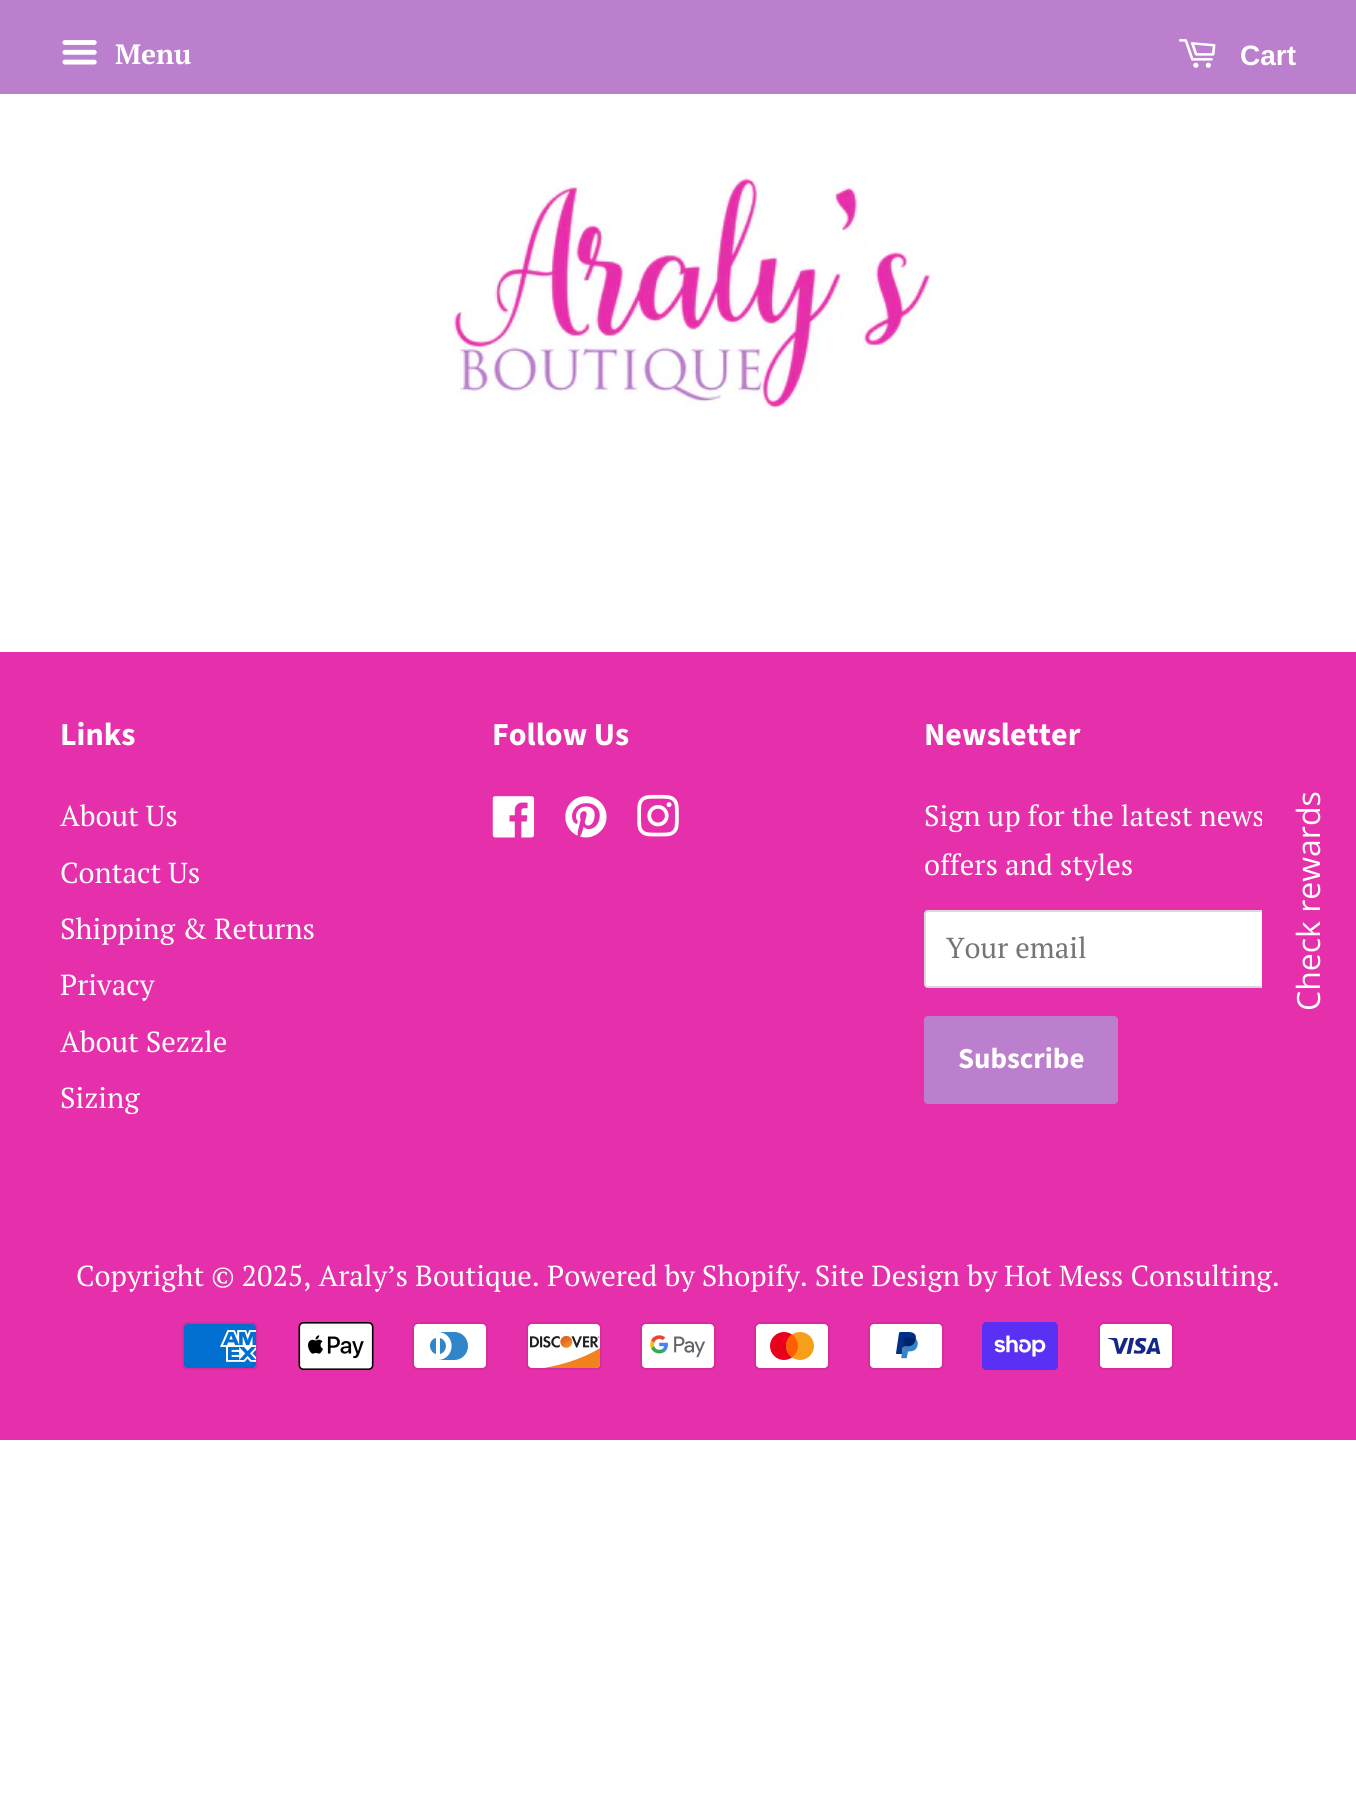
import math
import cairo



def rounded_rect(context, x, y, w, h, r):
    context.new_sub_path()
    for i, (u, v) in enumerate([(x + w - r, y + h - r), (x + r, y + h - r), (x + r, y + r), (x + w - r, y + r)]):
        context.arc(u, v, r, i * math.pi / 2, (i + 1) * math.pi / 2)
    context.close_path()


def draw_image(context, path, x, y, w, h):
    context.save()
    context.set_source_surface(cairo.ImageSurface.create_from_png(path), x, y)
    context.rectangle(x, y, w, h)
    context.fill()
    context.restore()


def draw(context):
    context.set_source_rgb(1, 1, 1)
    context.paint()
    context.set_source_rgb(188 / 255, 127 / 255, 205 / 255)
    context.rectangle(0, 0, 1356, 94)
    context.fill()
    draw_image(context, "images/1.png", 62, 40, 35, 25)
    draw_image(context, "images/2.png", 1178, 39, 38, 29)
    draw_image(context, "images/3.png", 453, 174, 478, 235)
    context.set_source_rgb(230 / 255, 47 / 255, 171 / 255)
    context.rectangle(0, 652, 1356, 788)
    context.fill()
    draw_image(context, "images/4.png", 492, 796, 43, 42)
    draw_image(context, "images/5.png", 565, 796, 42, 42)
    draw_image(context, "images/6.png", 637, 794, 42, 43)
    context.set_source_rgb(1, 1, 1)
    rounded_rect(context, 924, 910, 372, 78, 4)
    context.fill()
    rounded_rect(context, 925, 911, 370, 76, 3)
    context.set_source_rgba(0, 0, 0, 0.15)
    context.stroke()
    context.set_source_rgb(188 / 255, 127 / 255, 205 / 255)
    rounded_rect(context, 924, 1016, 194, 88, 4)
    context.fill()
    draw_image(context, "images/7.png", 182, 1322, 76, 48)
    draw_image(context, "images/8.png", 298, 1322, 76, 48)
    draw_image(context, "images/9.png", 412, 1322, 76, 48)
    draw_image(context, "images/10.png", 526, 1322, 76, 48)
    draw_image(context, "images/11.png", 640, 1322, 76, 48)
    draw_image(context, "images/12.png", 754, 1322, 76, 48)
    draw_image(context, "images/13.png", 868, 1322, 76, 48)
    draw_image(context, "images/14.png", 982, 1322, 76, 48)
    draw_image(context, "images/15.png", 1098, 1322, 76, 48)
    context.select_font_face("PT Serif", cairo.FontSlant.NORMAL, cairo.FontWeight.BOLD)
    context.set_font_size(28)
    context.set_source_rgb(1, 1, 1)
    context.move_to(115, 64)
    context.show_text("Menu")
    context.select_font_face("Liberation Sans", cairo.FontSlant.NORMAL, cairo.FontWeight.BOLD)
    context.move_to(1240, 65)
    context.show_text("Cart")
    context.select_font_face("Source Sans Pro", cairo.FontSlant.NORMAL, cairo.FontWeight.BOLD)
    context.set_font_size(32)
    context.move_to(60, 745)
    context.show_text("Links")
    context.select_font_face("PT Serif")
    context.set_font_size(28.9)
    context.move_to(60, 826)
    context.show_text("About Us")
    context.move_to(60, 883)
    context.show_text("Contact Us")
    context.move_to(60, 939)
    context.show_text("Shipping & Returns")
    context.move_to(60, 995)
    context.show_text("Privacy")
    context.move_to(60, 1052)
    context.show_text("About Sezzle")
    context.move_to(60, 1108)
    context.show_text("Sizing")
    context.select_font_face("Source Sans Pro", cairo.FontSlant.NORMAL, cairo.FontWeight.BOLD)
    context.set_font_size(32)
    context.move_to(492, 745)
    context.show_text("Follow Us")
    context.move_to(924, 745)
    context.show_text("Newsletter")
    context.select_font_face("PT Serif")
    context.set_font_size(28.9)
    context.move_to(924, 826)
    context.show_text("Sign up for the latest news")
    context.move_to(924, 875)
    context.show_text("offers and styles")
    context.set_source_rgb(117 / 255, 117 / 255, 117 / 255)
    context.move_to(946, 958)
    context.show_text("Your email")
    context.select_font_face("Source Sans Pro", cairo.FontSlant.NORMAL, cairo.FontWeight.BOLD)
    context.set_source_rgb(1, 1, 1)
    context.move_to(958, 1068)
    context.show_text("Subscribe")
    context.select_font_face("PT Serif")
    context.move_to(76, 1286)
    context.show_text("Copyright © 2025, Araly’s Boutique. Powered by Shopify. Site Design by")
    context.move_to(1004, 1286)
    context.show_text("Hot Mess Consulting.")
    context.set_source_rgb(230 / 255, 47 / 255, 171 / 255)
    context.rectangle(1262, 811, 34, 177)
    context.fill()
    context.select_font_face("Open Sans")
    context.set_font_size(32)
    context.set_source_rgb(1, 1, 1)
    context.save()
    context.translate(1320, 1011)
    context.rotate(-90 * math.pi / 180)
    context.move_to(0, 0)
    context.show_text("Check rewards")
    context.restore()


surface = cairo.ImageSurface(cairo.Format.RGB24, 1356, 1801)
context = cairo.Context(surface)
options = cairo.FontOptions()
options.set_hint_metrics(cairo.HintMetrics.OFF)
options.set_hint_style(cairo.HintStyle.NONE)
context.set_font_options(options)
context.set_miter_limit(4)
draw(context)
surface.write_to_png("out.png")
